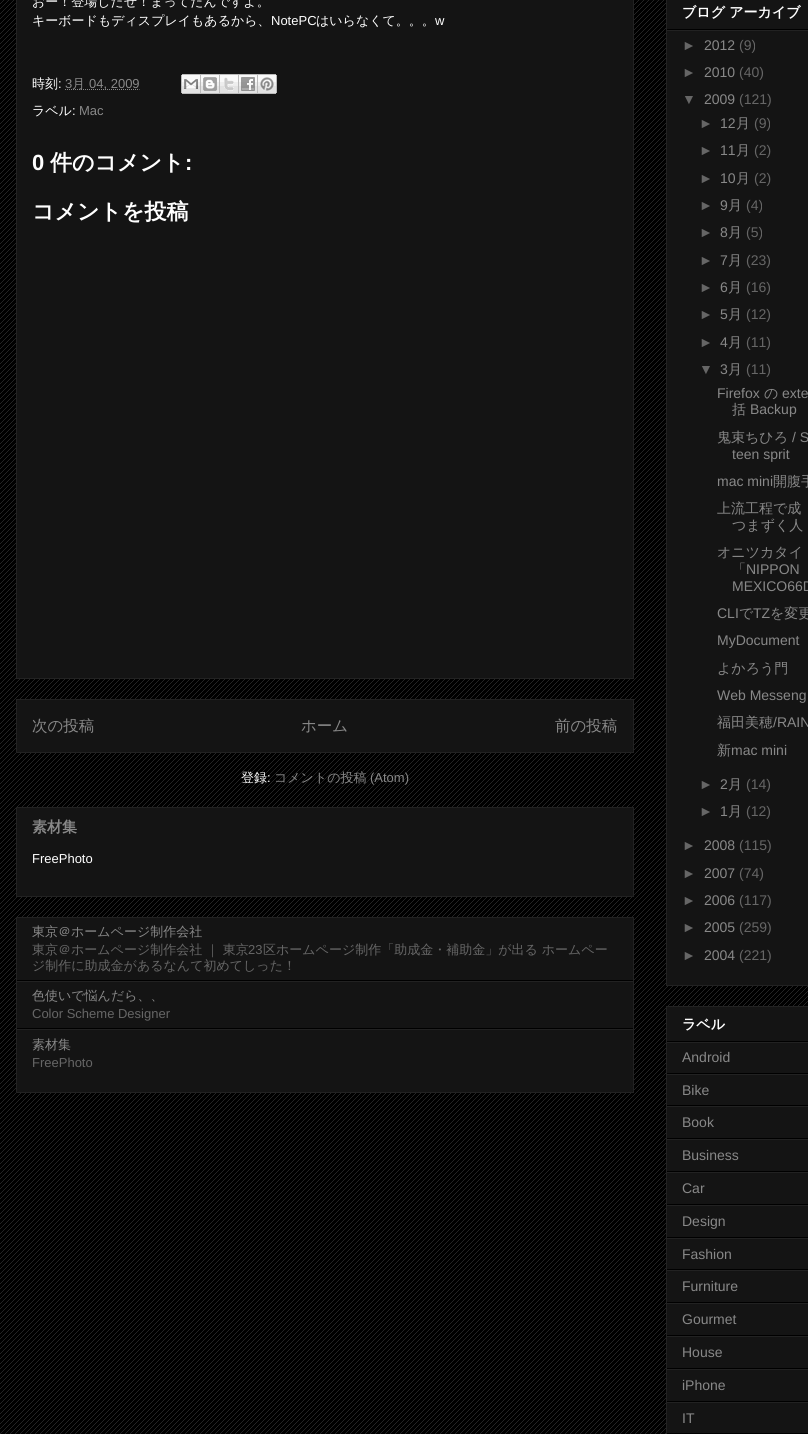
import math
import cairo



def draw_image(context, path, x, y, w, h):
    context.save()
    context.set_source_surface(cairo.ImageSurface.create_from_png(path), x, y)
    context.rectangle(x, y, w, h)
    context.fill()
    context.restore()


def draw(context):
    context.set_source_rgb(0, 0, 0)
    context.paint()
    draw_image(context, "images/1.png", 0, 0, 808, 1434)
    context.set_source_rgba(73 / 255, 73 / 255, 73 / 255, 0.05)
    context.rectangle(0, 0, 666, 1)
    context.fill()
    context.set_source_rgb(20 / 255, 20 / 255, 20 / 255)
    context.rectangle(16.5, -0.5, 617, 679)
    context.fill_preserve()
    context.set_source_rgb(34 / 255, 34 / 255, 34 / 255)
    context.set_line_width(1)
    context.stroke()
    context.new_path()
    context.move_to(65, 89.5)
    context.line_to(139.5, 89.5)
    context.set_source_rgb(136 / 255, 136 / 255, 136 / 255)
    context.set_dash([1, 1])
    context.stroke()
    draw_image(context, "images/2.png", 181, 74, 20, 20)
    draw_image(context, "images/3.png", 201, 74, 19, 20)
    draw_image(context, "images/4.png", 220, 74, 19, 20)
    draw_image(context, "images/5.png", 239, 74, 19, 20)
    draw_image(context, "images/6.png", 258, 74, 19, 20)
    context.set_source_rgb(20 / 255, 20 / 255, 20 / 255)
    context.rectangle(16.5, 699.5, 617, 53)
    context.fill_preserve()
    context.set_source_rgb(34 / 255, 34 / 255, 34 / 255)
    context.set_dash([])
    context.stroke()
    context.set_source_rgb(20 / 255, 20 / 255, 20 / 255)
    context.rectangle(16.5, 807.5, 617, 89)
    context.fill_preserve()
    context.set_source_rgb(34 / 255, 34 / 255, 34 / 255)
    context.stroke()
    context.set_source_rgb(20 / 255, 20 / 255, 20 / 255)
    context.rectangle(16.5, 917.5, 617, 175)
    context.fill_preserve()
    context.set_source_rgb(34 / 255, 34 / 255, 34 / 255)
    context.stroke()
    context.set_source_rgb(0, 0, 0)
    context.rectangle(17, 980, 616, 1)
    context.fill()
    context.set_source_rgb(34 / 255, 34 / 255, 34 / 255)
    context.rectangle(17, 981, 616, 1)
    context.fill()
    context.set_source_rgb(0, 0, 0)
    context.rectangle(17, 1028, 616, 1)
    context.fill()
    context.set_source_rgb(34 / 255, 34 / 255, 34 / 255)
    context.rectangle(17, 1029, 616, 1)
    context.fill()
    context.set_source_rgb(20 / 255, 20 / 255, 20 / 255)
    context.rectangle(666.5, -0.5, 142, 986)
    context.fill_preserve()
    context.set_source_rgb(34 / 255, 34 / 255, 34 / 255)
    context.stroke()
    context.set_source_rgb(0, 0, 0)
    context.rectangle(667, 29, 141, 1)
    context.fill()
    context.set_source_rgb(34 / 255, 34 / 255, 34 / 255)
    context.rectangle(667, 30, 141, 1)
    context.fill()
    context.set_source_rgb(20 / 255, 20 / 255, 20 / 255)
    context.rectangle(667, 1007, 141, 426)
    context.fill()
    context.rectangle(666.5, 1006.5, 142, 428)
    context.set_source_rgb(34 / 255, 34 / 255, 34 / 255)
    context.stroke()
    context.set_source_rgb(0, 0, 0)
    context.rectangle(667, 1041, 141, 1)
    context.fill()
    context.set_source_rgb(34 / 255, 34 / 255, 34 / 255)
    context.rectangle(667, 1042, 141, 1)
    context.fill()
    context.set_source_rgb(0, 0, 0)
    context.rectangle(667, 1073, 141, 1)
    context.fill()
    context.set_source_rgb(34 / 255, 34 / 255, 34 / 255)
    context.rectangle(667, 1074, 141, 1)
    context.fill()
    context.set_source_rgb(0, 0, 0)
    context.rectangle(667, 1105, 141, 1)
    context.fill()
    context.set_source_rgb(34 / 255, 34 / 255, 34 / 255)
    context.rectangle(667, 1106, 141, 1)
    context.fill()
    context.set_source_rgb(0, 0, 0)
    context.rectangle(667, 1138, 141, 1)
    context.fill()
    context.set_source_rgb(34 / 255, 34 / 255, 34 / 255)
    context.rectangle(667, 1139, 141, 1)
    context.fill()
    context.set_source_rgb(0, 0, 0)
    context.rectangle(667, 1171, 141, 1)
    context.fill()
    context.set_source_rgb(34 / 255, 34 / 255, 34 / 255)
    context.rectangle(667, 1172, 141, 1)
    context.fill()
    context.set_source_rgb(0, 0, 0)
    context.rectangle(667, 1204, 141, 1)
    context.fill()
    context.set_source_rgb(34 / 255, 34 / 255, 34 / 255)
    context.rectangle(667, 1205, 141, 1)
    context.fill()
    context.set_source_rgb(0, 0, 0)
    context.rectangle(667, 1237, 141, 1)
    context.fill()
    context.set_source_rgb(34 / 255, 34 / 255, 34 / 255)
    context.rectangle(667, 1238, 141, 1)
    context.fill()
    context.set_source_rgb(0, 0, 0)
    context.rectangle(667, 1269, 141, 1)
    context.fill()
    context.set_source_rgb(34 / 255, 34 / 255, 34 / 255)
    context.rectangle(667, 1270, 141, 1)
    context.fill()
    context.set_source_rgb(0, 0, 0)
    context.rectangle(667, 1302, 141, 1)
    context.fill()
    context.set_source_rgb(34 / 255, 34 / 255, 34 / 255)
    context.rectangle(667, 1303, 141, 1)
    context.fill()
    context.set_source_rgb(0, 0, 0)
    context.rectangle(667, 1335, 141, 1)
    context.fill()
    context.set_source_rgb(34 / 255, 34 / 255, 34 / 255)
    context.rectangle(667, 1336, 141, 1)
    context.fill()
    context.set_source_rgb(0, 0, 0)
    context.rectangle(667, 1368, 141, 1)
    context.fill()
    context.set_source_rgb(34 / 255, 34 / 255, 34 / 255)
    context.rectangle(667, 1369, 141, 1)
    context.fill()
    context.set_source_rgb(0, 0, 0)
    context.rectangle(667, 1401, 141, 1)
    context.fill()
    context.set_source_rgb(34 / 255, 34 / 255, 34 / 255)
    context.rectangle(667, 1402, 141, 1)
    context.fill()
    context.set_source_rgb(0, 0, 0)
    context.rectangle(667, 1433, 141, 1)
    context.fill()
    context.select_font_face("WenQuanYi Zen Hei Medium")
    context.set_font_size(13)
    context.set_source_rgb(1, 1, 1)
    context.move_to(32, 6)
    context.show_text("おー！登場したぜ！まってたんですよ。")
    context.move_to(32, 25)
    context.show_text("キーボードもディスプレイもあるから、")
    context.select_font_face("Liberation Sans")
    context.move_to(271, 25)
    context.show_text("NotePC")
    context.select_font_face("WenQuanYi Zen Hei Medium")
    context.move_to(316, 25)
    context.show_text("はいらなくて。。。")
    context.select_font_face("Liberation Sans")
    context.move_to(435, 25)
    context.show_text("w")
    context.select_font_face("WenQuanYi Zen Hei Medium")
    context.move_to(32, 88)
    context.show_text("時刻")
    context.select_font_face("Liberation Sans")
    context.move_to(58, 88)
    context.show_text(":")
    context.set_source_rgb(136 / 255, 136 / 255, 136 / 255)
    context.move_to(65, 88)
    context.show_text("3")
    context.select_font_face("WenQuanYi Zen Hei Medium")
    context.move_to(72, 88)
    context.show_text("月")
    context.select_font_face("Liberation Sans")
    context.move_to(89, 88)
    context.show_text("04, 2009")
    context.select_font_face("WenQuanYi Zen Hei Medium")
    context.set_source_rgb(1, 1, 1)
    context.move_to(32, 115)
    context.show_text("ラベル")
    context.select_font_face("Liberation Sans")
    context.move_to(72, 115)
    context.show_text(":")
    context.set_source_rgb(136 / 255, 136 / 255, 136 / 255)
    context.move_to(79, 115)
    context.show_text("Mac")
    context.select_font_face("Liberation Sans", cairo.FontSlant.NORMAL, cairo.FontWeight.BOLD)
    context.set_font_size(22)
    context.set_source_rgb(1, 1, 1)
    context.move_to(32, 170)
    context.show_text("0")
    context.select_font_face("WenQuanYi Zen Hei", cairo.FontSlant.NORMAL, cairo.FontWeight.BOLD)
    context.move_to(50, 170)
    context.show_text("件のコメント")
    context.select_font_face("Liberation Sans", cairo.FontSlant.NORMAL, cairo.FontWeight.BOLD)
    context.move_to(185, 170)
    context.show_text(":")
    context.select_font_face("WenQuanYi Zen Hei", cairo.FontSlant.NORMAL, cairo.FontWeight.BOLD)
    context.move_to(32, 219)
    context.show_text("コメントを投稿")
    context.select_font_face("WenQuanYi Zen Hei Medium")
    context.set_font_size(15.5)
    context.set_source_rgb(136 / 255, 136 / 255, 136 / 255)
    context.move_to(32, 731)
    context.show_text("次の投稿")
    context.move_to(301, 731)
    context.show_text("ホーム")
    context.move_to(555, 731)
    context.show_text("前の投稿")
    context.set_font_size(13)
    context.set_source_rgb(1, 1, 1)
    context.move_to(241, 782)
    context.show_text("登録")
    context.select_font_face("Liberation Sans")
    context.move_to(267, 782)
    context.show_text(":")
    context.select_font_face("WenQuanYi Zen Hei Medium")
    context.set_source_rgb(136 / 255, 136 / 255, 136 / 255)
    context.move_to(274, 782)
    context.show_text("コメントの投稿")
    context.select_font_face("Liberation Sans")
    context.move_to(370, 782)
    context.show_text("(Atom)")
    context.select_font_face("WenQuanYi Zen Hei", cairo.FontSlant.NORMAL, cairo.FontWeight.BOLD)
    context.set_font_size(15)
    context.move_to(32, 832)
    context.show_text("素材集")
    context.select_font_face("Liberation Sans")
    context.set_font_size(13)
    context.set_source_rgb(1, 1, 1)
    context.move_to(32, 863)
    context.show_text("FreePhoto")
    context.select_font_face("WenQuanYi Zen Hei Medium")
    context.set_source_rgb(136 / 255, 136 / 255, 136 / 255)
    context.move_to(32, 936)
    context.show_text("東京＠ホームページ制作会社")
    context.set_source_rgb(102 / 255, 102 / 255, 102 / 255)
    context.move_to(32, 954)
    context.show_text("東京＠ホームページ制作会社 ｜ 東京")
    context.select_font_face("Liberation Sans")
    context.move_to(248, 954)
    context.show_text("23")
    context.select_font_face("WenQuanYi Zen Hei Medium")
    context.move_to(263, 954)
    context.show_text("区ホームページ制作「助成金・補助金」が出る ホームペー")
    context.move_to(32, 970)
    context.show_text("ジ制作に助成金があるなんて初めてしった！")
    context.set_source_rgb(136 / 255, 136 / 255, 136 / 255)
    context.move_to(32, 1000)
    context.show_text("色使いで悩んだら、、")
    context.select_font_face("Liberation Sans")
    context.set_source_rgb(102 / 255, 102 / 255, 102 / 255)
    context.move_to(32, 1018)
    context.show_text("Color Scheme Designer")
    context.select_font_face("WenQuanYi Zen Hei Medium")
    context.set_source_rgb(136 / 255, 136 / 255, 136 / 255)
    context.move_to(32, 1049)
    context.show_text("素材集")
    context.select_font_face("Liberation Sans")
    context.set_source_rgb(102 / 255, 102 / 255, 102 / 255)
    context.move_to(32, 1067)
    context.show_text("FreePhoto")
    context.select_font_face("WenQuanYi Zen Hei", cairo.FontSlant.NORMAL, cairo.FontWeight.BOLD)
    context.set_font_size(14)
    context.set_source_rgb(1, 1, 1)
    context.move_to(682, 17)
    context.show_text("ブログ アーカイブ")
    context.select_font_face("Liberation Sans")
    context.set_source_rgb(102 / 255, 102 / 255, 102 / 255)
    context.move_to(682, 50)
    context.show_text("►")
    context.set_source_rgb(136 / 255, 136 / 255, 136 / 255)
    context.move_to(704, 50)
    context.show_text("2012")
    context.set_source_rgb(102 / 255, 102 / 255, 102 / 255)
    context.move_to(739, 50)
    context.show_text("(9)")
    context.move_to(682, 77)
    context.show_text("►")
    context.set_source_rgb(136 / 255, 136 / 255, 136 / 255)
    context.move_to(704, 77)
    context.show_text("2010")
    context.set_source_rgb(102 / 255, 102 / 255, 102 / 255)
    context.move_to(739, 77)
    context.show_text("(40)")
    context.move_to(682, 104)
    context.show_text("▼")
    context.set_source_rgb(136 / 255, 136 / 255, 136 / 255)
    context.move_to(704, 104)
    context.show_text("2009")
    context.set_source_rgb(102 / 255, 102 / 255, 102 / 255)
    context.move_to(739, 104)
    context.show_text("(121)")
    context.move_to(699, 128)
    context.show_text("►")
    context.set_source_rgb(136 / 255, 136 / 255, 136 / 255)
    context.move_to(720, 128)
    context.show_text("12")
    context.select_font_face("WenQuanYi Zen Hei Medium")
    context.move_to(736, 128)
    context.show_text("月")
    context.select_font_face("Liberation Sans")
    context.set_source_rgb(102 / 255, 102 / 255, 102 / 255)
    context.move_to(754, 128)
    context.show_text("(9)")
    context.move_to(699, 155)
    context.show_text("►")
    context.set_source_rgb(136 / 255, 136 / 255, 136 / 255)
    context.move_to(720, 155)
    context.show_text("11")
    context.select_font_face("WenQuanYi Zen Hei Medium")
    context.move_to(736, 155)
    context.show_text("月")
    context.select_font_face("Liberation Sans")
    context.set_source_rgb(102 / 255, 102 / 255, 102 / 255)
    context.move_to(754, 155)
    context.show_text("(2)")
    context.move_to(699, 183)
    context.show_text("►")
    context.set_source_rgb(136 / 255, 136 / 255, 136 / 255)
    context.move_to(720, 183)
    context.show_text("10")
    context.select_font_face("WenQuanYi Zen Hei Medium")
    context.move_to(736, 183)
    context.show_text("月")
    context.select_font_face("Liberation Sans")
    context.set_source_rgb(102 / 255, 102 / 255, 102 / 255)
    context.move_to(754, 183)
    context.show_text("(2)")
    context.move_to(699, 210)
    context.show_text("►")
    context.set_source_rgb(136 / 255, 136 / 255, 136 / 255)
    context.move_to(720, 210)
    context.show_text("9")
    context.select_font_face("WenQuanYi Zen Hei Medium")
    context.move_to(728, 210)
    context.show_text("月")
    context.select_font_face("Liberation Sans")
    context.set_source_rgb(102 / 255, 102 / 255, 102 / 255)
    context.move_to(746, 210)
    context.show_text("(4)")
    context.move_to(699, 237)
    context.show_text("►")
    context.set_source_rgb(136 / 255, 136 / 255, 136 / 255)
    context.move_to(720, 237)
    context.show_text("8")
    context.select_font_face("WenQuanYi Zen Hei Medium")
    context.move_to(728, 237)
    context.show_text("月")
    context.select_font_face("Liberation Sans")
    context.set_source_rgb(102 / 255, 102 / 255, 102 / 255)
    context.move_to(746, 237)
    context.show_text("(5)")
    context.move_to(699, 265)
    context.show_text("►")
    context.set_source_rgb(136 / 255, 136 / 255, 136 / 255)
    context.move_to(720, 265)
    context.show_text("7")
    context.select_font_face("WenQuanYi Zen Hei Medium")
    context.move_to(728, 265)
    context.show_text("月")
    context.select_font_face("Liberation Sans")
    context.set_source_rgb(102 / 255, 102 / 255, 102 / 255)
    context.move_to(746, 265)
    context.show_text("(23)")
    context.move_to(699, 292)
    context.show_text("►")
    context.set_source_rgb(136 / 255, 136 / 255, 136 / 255)
    context.move_to(720, 292)
    context.show_text("6")
    context.select_font_face("WenQuanYi Zen Hei Medium")
    context.move_to(728, 292)
    context.show_text("月")
    context.select_font_face("Liberation Sans")
    context.set_source_rgb(102 / 255, 102 / 255, 102 / 255)
    context.move_to(746, 292)
    context.show_text("(16)")
    context.move_to(699, 319)
    context.show_text("►")
    context.set_source_rgb(136 / 255, 136 / 255, 136 / 255)
    context.move_to(720, 319)
    context.show_text("5")
    context.select_font_face("WenQuanYi Zen Hei Medium")
    context.move_to(728, 319)
    context.show_text("月")
    context.select_font_face("Liberation Sans")
    context.set_source_rgb(102 / 255, 102 / 255, 102 / 255)
    context.move_to(746, 319)
    context.show_text("(12)")
    context.move_to(699, 347)
    context.show_text("►")
    context.set_source_rgb(136 / 255, 136 / 255, 136 / 255)
    context.move_to(720, 347)
    context.show_text("4")
    context.select_font_face("WenQuanYi Zen Hei Medium")
    context.move_to(728, 347)
    context.show_text("月")
    context.select_font_face("Liberation Sans")
    context.set_source_rgb(102 / 255, 102 / 255, 102 / 255)
    context.move_to(746, 347)
    context.show_text("(11)")
    context.move_to(699, 374)
    context.show_text("▼")
    context.set_source_rgb(136 / 255, 136 / 255, 136 / 255)
    context.move_to(720, 374)
    context.show_text("3")
    context.select_font_face("WenQuanYi Zen Hei Medium")
    context.move_to(728, 374)
    context.show_text("月")
    context.select_font_face("Liberation Sans")
    context.set_source_rgb(102 / 255, 102 / 255, 102 / 255)
    context.move_to(746, 374)
    context.show_text("(11)")
    context.set_source_rgb(136 / 255, 136 / 255, 136 / 255)
    context.move_to(717, 398)
    context.show_text("Firefox")
    context.select_font_face("WenQuanYi Zen Hei Medium")
    context.move_to(764, 398)
    context.show_text("の")
    context.select_font_face("Liberation Sans")
    context.move_to(782, 398)
    context.show_text("exte")
    context.select_font_face("WenQuanYi Zen Hei Medium")
    context.move_to(732, 414)
    context.show_text("括")
    context.select_font_face("Liberation Sans")
    context.move_to(750, 414)
    context.show_text("Backup")
    context.select_font_face("WenQuanYi Zen Hei Medium")
    context.move_to(717, 442)
    context.show_text("鬼束ちひろ")
    context.select_font_face("Liberation Sans")
    context.move_to(792, 442)
    context.show_text("/ S")
    context.move_to(732, 459)
    context.show_text("teen sprit")
    context.move_to(717, 486)
    context.show_text("mac mini")
    context.select_font_face("WenQuanYi Zen Hei Medium")
    context.move_to(773, 486)
    context.show_text("開腹手")
    context.move_to(717, 513)
    context.show_text("上流工程で成")
    context.move_to(732, 530)
    context.show_text("つまずく人")
    context.move_to(717, 557)
    context.show_text("オニツカタイ")
    context.move_to(732, 574)
    context.show_text("「")
    context.select_font_face("Liberation Sans")
    context.move_to(746, 574)
    context.show_text("NIPPON")
    context.move_to(732, 591)
    context.show_text("MEXICO66D")
    context.move_to(717, 618)
    context.show_text("CLI")
    context.select_font_face("WenQuanYi Zen Hei Medium")
    context.move_to(739, 618)
    context.show_text("で")
    context.select_font_face("Liberation Sans")
    context.move_to(753, 618)
    context.show_text("TZ")
    context.select_font_face("WenQuanYi Zen Hei Medium")
    context.move_to(770, 618)
    context.show_text("を変更")
    context.select_font_face("Liberation Sans")
    context.move_to(717, 645)
    context.show_text("MyDocument")
    context.select_font_face("WenQuanYi Zen Hei Medium")
    context.move_to(717, 673)
    context.show_text("よかろう門")
    context.select_font_face("Liberation Sans")
    context.move_to(717, 700)
    context.show_text("Web Messeng")
    context.select_font_face("WenQuanYi Zen Hei Medium")
    context.move_to(717, 727)
    context.show_text("福田美穂")
    context.select_font_face("Liberation Sans")
    context.move_to(773, 727)
    context.show_text("/RAIN")
    context.select_font_face("WenQuanYi Zen Hei Medium")
    context.move_to(717, 755)
    context.show_text("新")
    context.select_font_face("Liberation Sans")
    context.move_to(731, 755)
    context.show_text("mac mini")
    context.set_source_rgb(102 / 255, 102 / 255, 102 / 255)
    context.move_to(699, 789)
    context.show_text("►")
    context.set_source_rgb(136 / 255, 136 / 255, 136 / 255)
    context.move_to(720, 789)
    context.show_text("2")
    context.select_font_face("WenQuanYi Zen Hei Medium")
    context.move_to(728, 789)
    context.show_text("月")
    context.select_font_face("Liberation Sans")
    context.set_source_rgb(102 / 255, 102 / 255, 102 / 255)
    context.move_to(746, 789)
    context.show_text("(14)")
    context.move_to(699, 816)
    context.show_text("►")
    context.set_source_rgb(136 / 255, 136 / 255, 136 / 255)
    context.move_to(720, 816)
    context.show_text("1")
    context.select_font_face("WenQuanYi Zen Hei Medium")
    context.move_to(728, 816)
    context.show_text("月")
    context.select_font_face("Liberation Sans")
    context.set_source_rgb(102 / 255, 102 / 255, 102 / 255)
    context.move_to(746, 816)
    context.show_text("(12)")
    context.move_to(682, 850)
    context.show_text("►")
    context.set_source_rgb(136 / 255, 136 / 255, 136 / 255)
    context.move_to(704, 850)
    context.show_text("2008")
    context.set_source_rgb(102 / 255, 102 / 255, 102 / 255)
    context.move_to(739, 850)
    context.show_text("(115)")
    context.move_to(682, 878)
    context.show_text("►")
    context.set_source_rgb(136 / 255, 136 / 255, 136 / 255)
    context.move_to(704, 878)
    context.show_text("2007")
    context.set_source_rgb(102 / 255, 102 / 255, 102 / 255)
    context.move_to(739, 878)
    context.show_text("(74)")
    context.move_to(682, 905)
    context.show_text("►")
    context.set_source_rgb(136 / 255, 136 / 255, 136 / 255)
    context.move_to(704, 905)
    context.show_text("2006")
    context.set_source_rgb(102 / 255, 102 / 255, 102 / 255)
    context.move_to(739, 905)
    context.show_text("(117)")
    context.move_to(682, 932)
    context.show_text("►")
    context.set_source_rgb(136 / 255, 136 / 255, 136 / 255)
    context.move_to(704, 932)
    context.show_text("2005")
    context.set_source_rgb(102 / 255, 102 / 255, 102 / 255)
    context.move_to(739, 932)
    context.show_text("(259)")
    context.move_to(682, 960)
    context.show_text("►")
    context.set_source_rgb(136 / 255, 136 / 255, 136 / 255)
    context.move_to(704, 960)
    context.show_text("2004")
    context.set_source_rgb(102 / 255, 102 / 255, 102 / 255)
    context.move_to(739, 960)
    context.show_text("(221)")
    context.select_font_face("WenQuanYi Zen Hei", cairo.FontSlant.NORMAL, cairo.FontWeight.BOLD)
    context.set_source_rgb(1, 1, 1)
    context.move_to(682, 1029)
    context.show_text("ラベル")
    context.select_font_face("Liberation Sans")
    context.set_source_rgb(136 / 255, 136 / 255, 136 / 255)
    context.move_to(682, 1062)
    context.show_text("Android")
    context.move_to(682, 1095)
    context.show_text("Bike")
    context.move_to(682, 1127)
    context.show_text("Book")
    context.move_to(682, 1160)
    context.show_text("Business")
    context.move_to(682, 1193)
    context.show_text("Car")
    context.move_to(682, 1226)
    context.show_text("Design")
    context.move_to(682, 1259)
    context.show_text("Fashion")
    context.move_to(682, 1291)
    context.show_text("Furniture")
    context.move_to(682, 1324)
    context.show_text("Gourmet")
    context.move_to(682, 1357)
    context.show_text("House")
    context.move_to(682, 1390)
    context.show_text("iPhone")
    context.move_to(682, 1423)
    context.show_text("IT")


surface = cairo.ImageSurface(cairo.Format.RGB24, 808, 1434)
context = cairo.Context(surface)
options = cairo.FontOptions()
options.set_hint_metrics(cairo.HintMetrics.OFF)
options.set_hint_style(cairo.HintStyle.NONE)
context.set_font_options(options)
context.set_miter_limit(4)
draw(context)
surface.write_to_png("out.png")
